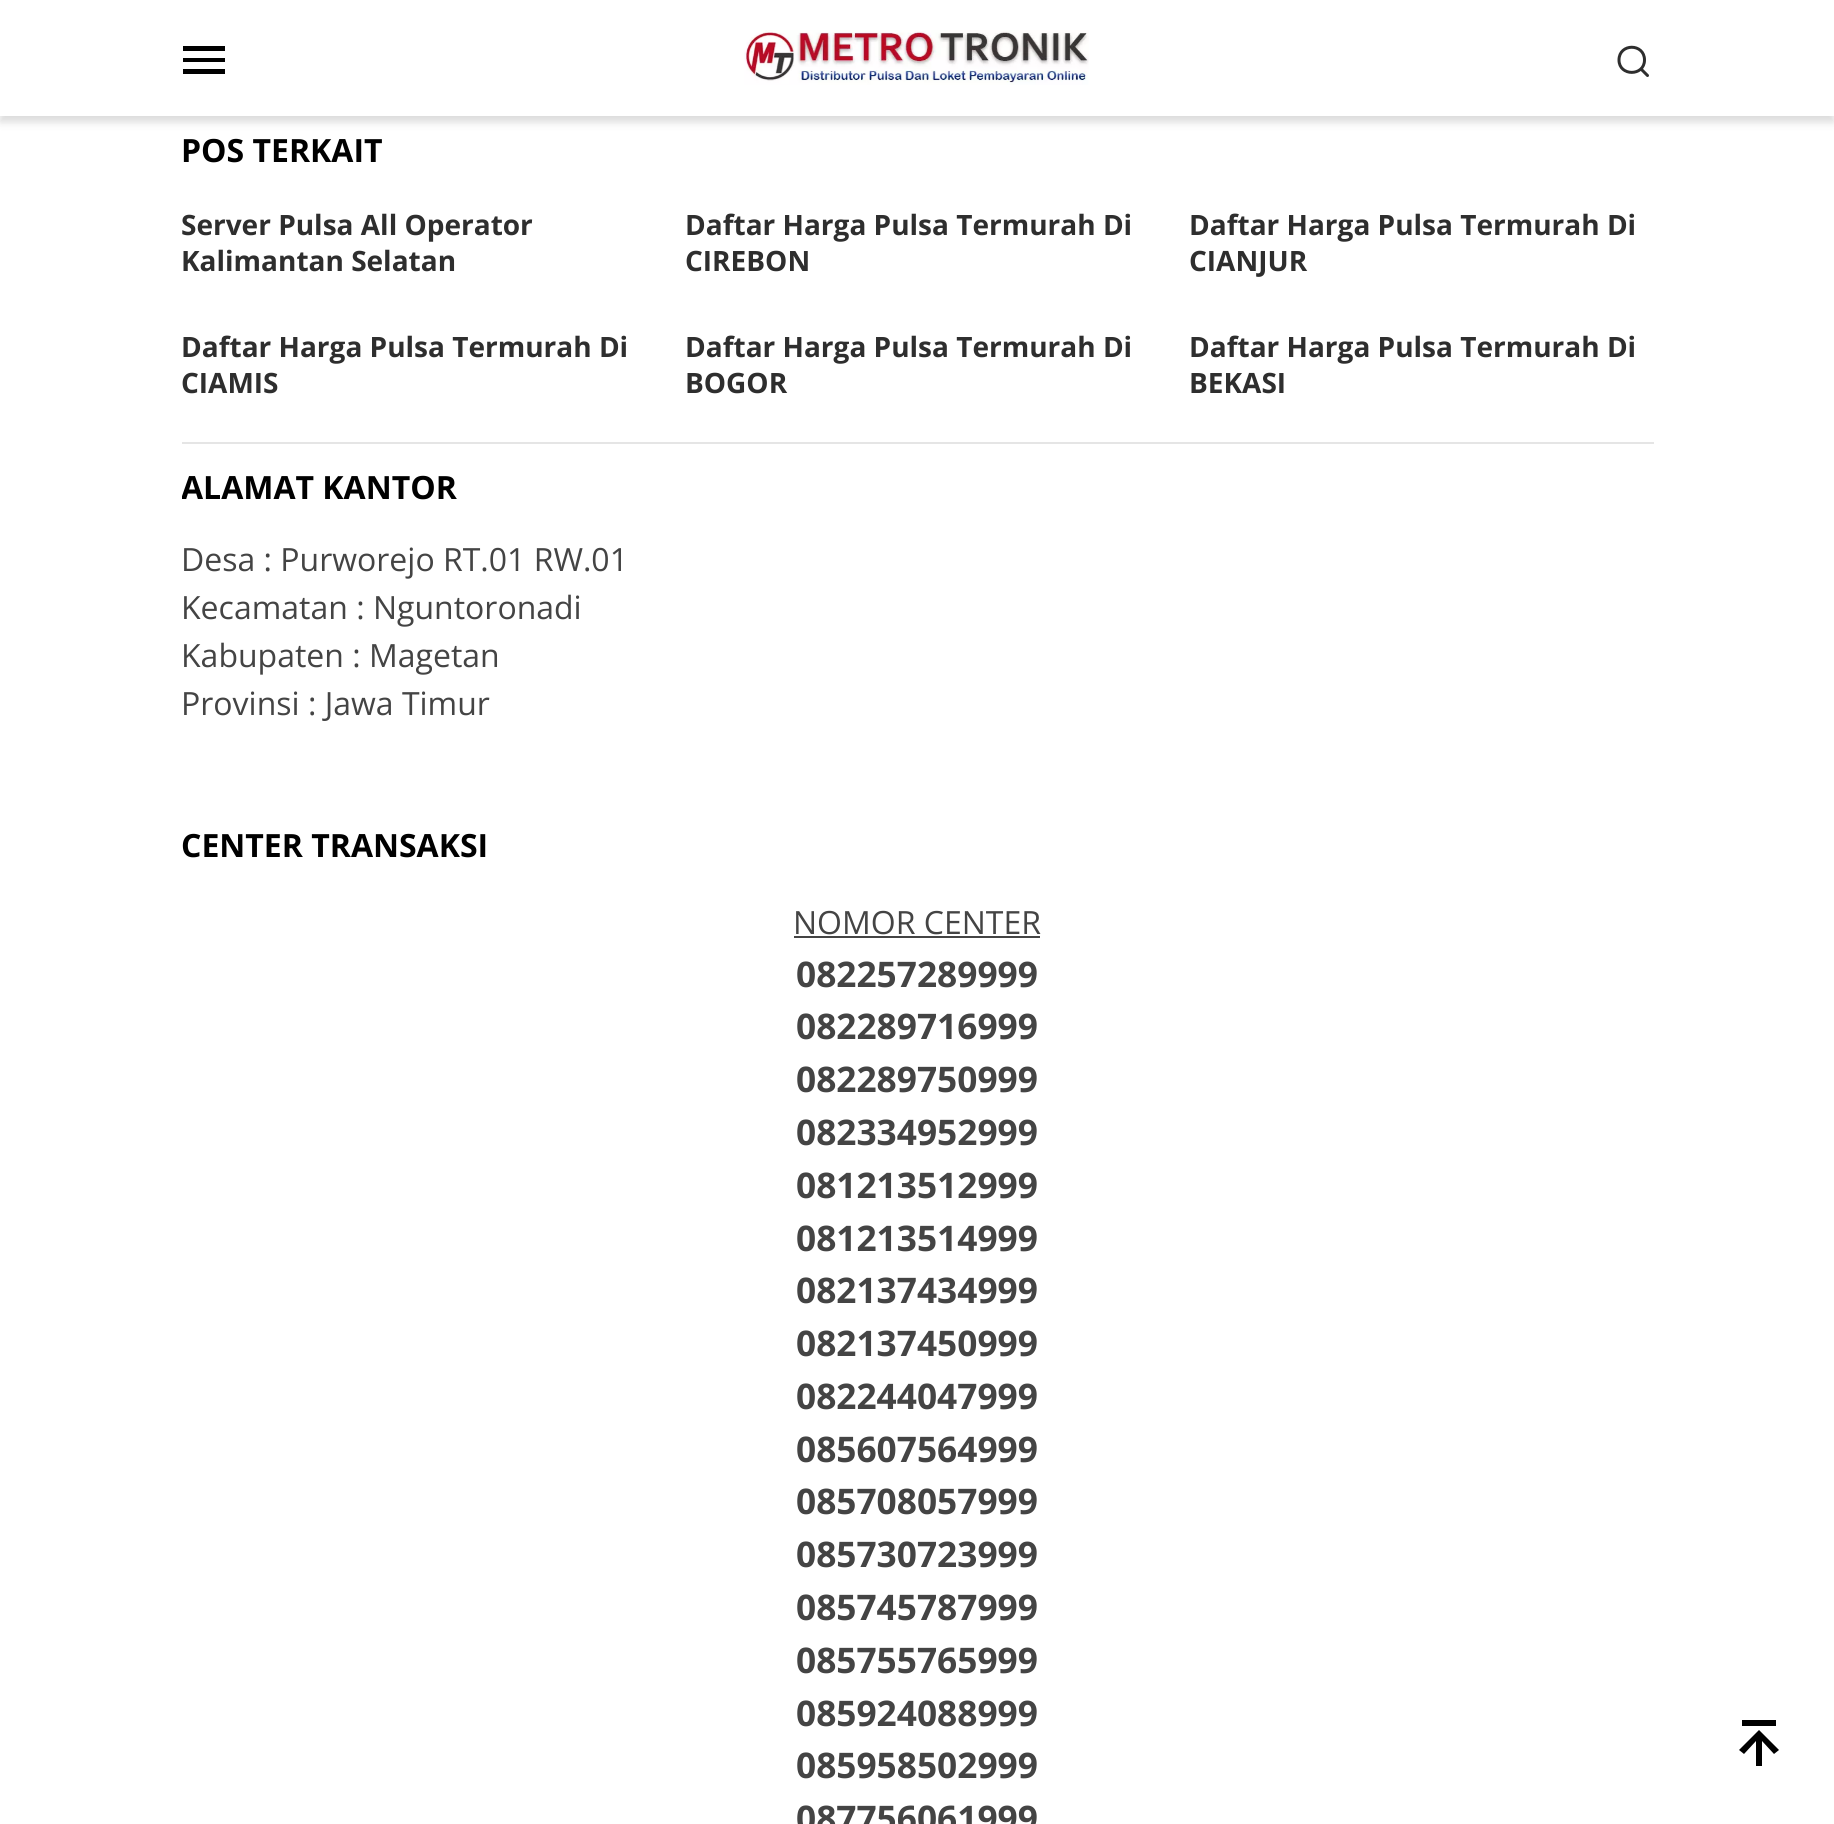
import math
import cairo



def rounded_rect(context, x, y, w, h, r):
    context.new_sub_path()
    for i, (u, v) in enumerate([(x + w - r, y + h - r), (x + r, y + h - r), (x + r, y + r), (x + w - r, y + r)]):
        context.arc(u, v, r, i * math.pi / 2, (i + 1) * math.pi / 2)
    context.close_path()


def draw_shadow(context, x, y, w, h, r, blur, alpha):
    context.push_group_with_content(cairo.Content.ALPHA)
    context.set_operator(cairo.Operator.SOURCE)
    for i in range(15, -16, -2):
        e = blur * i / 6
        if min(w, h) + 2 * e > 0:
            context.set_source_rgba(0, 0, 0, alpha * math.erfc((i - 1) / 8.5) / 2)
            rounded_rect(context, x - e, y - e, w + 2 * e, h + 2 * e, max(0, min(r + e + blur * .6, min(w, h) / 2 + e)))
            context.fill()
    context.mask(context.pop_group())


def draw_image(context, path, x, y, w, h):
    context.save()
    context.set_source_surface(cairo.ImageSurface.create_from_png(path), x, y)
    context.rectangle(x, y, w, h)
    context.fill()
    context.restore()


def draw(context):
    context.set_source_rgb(1, 1, 1)
    context.paint()
    context.set_source_rgb(52 / 255, 52 / 255, 52 / 255)
    draw_shadow(context, 0, 6, 1834, 116, 0, 4, 0.18)
    context.set_source_rgb(1, 1, 1)
    context.rectangle(0, 0, 1834, 116)
    context.fill()
    context.set_source_rgb(0, 0, 0)
    context.new_path()
    context.move_to(183, 46)
    context.line_to(225, 46)
    context.line_to(225, 51)
    context.line_to(183, 51)
    context.line_to(183, 46)
    context.move_to(183, 58)
    context.line_to(225, 58)
    context.line_to(225, 62)
    context.line_to(183, 62)
    context.line_to(183, 58)
    context.move_to(183, 69)
    context.line_to(225, 69)
    context.line_to(225, 74)
    context.line_to(183, 74)
    context.close_path()
    context.fill()
    draw_image(context, "images/1.png", 744, 30, 345, 55)
    context.new_path()
    context.move_to(1647.5, 75.5)
    context.line_to(1641, 69)
    context.move_to(1644.5, 60)
    context.curve_to(1644.5, 76.5, 1619, 76.5, 1619, 60)
    context.curve_to(1619, 43, 1644.5, 43, 1644.5, 60)
    context.close_path()
    context.set_source_rgb(46 / 255, 46 / 255, 46 / 255)
    context.set_line_width(3)
    context.set_line_cap(cairo.LineCap.ROUND)
    context.stroke()
    context.set_source_rgb(229 / 255, 229 / 255, 229 / 255)
    context.rectangle(182, 442, 1472, 2)
    context.fill()
    context.set_source_rgb(68 / 255, 68 / 255, 68 / 255)
    context.rectangle(794, 936, 246, 2)
    context.fill()
    context.set_source_rgb(0, 0, 0)
    context.new_path()
    context.move_to(1742, 1720)
    context.line_to(1776, 1720)
    context.line_to(1776, 1726)
    context.line_to(1742, 1726)
    context.close_path()
    context.move_to(1744, 1754)
    context.line_to(1756, 1741)
    context.line_to(1756, 1766)
    context.line_to(1762, 1766)
    context.line_to(1762, 1741)
    context.line_to(1774, 1754)
    context.line_to(1779, 1750)
    context.line_to(1759, 1730)
    context.line_to(1739, 1750)
    context.close_path()
    context.fill()
    context.select_font_face("Open Sans", cairo.FontSlant.NORMAL, cairo.FontWeight.BOLD)
    context.set_font_size(32)
    context.move_to(181, 162)
    context.show_text("POS TERKAIT")
    context.set_font_size(28)
    context.set_source_rgb(46 / 255, 46 / 255, 46 / 255)
    context.move_to(181, 235)
    context.show_text("Server Pulsa All Operator")
    context.move_to(181, 271)
    context.show_text("Kalimantan Selatan")
    context.move_to(685, 235)
    context.show_text("Daftar Harga Pulsa Termurah Di")
    context.move_to(685, 271)
    context.show_text("CIREBON")
    context.move_to(1189, 235)
    context.show_text("Daftar Harga Pulsa Termurah Di")
    context.move_to(1189, 271)
    context.show_text("CIANJUR")
    context.move_to(181, 357)
    context.show_text("Daftar Harga Pulsa Termurah Di")
    context.move_to(181, 393)
    context.show_text("CIAMIS")
    context.move_to(685, 357)
    context.show_text("Daftar Harga Pulsa Termurah Di")
    context.move_to(685, 393)
    context.show_text("BOGOR")
    context.move_to(1189, 357)
    context.show_text("Daftar Harga Pulsa Termurah Di")
    context.move_to(1189, 393)
    context.show_text("BEKASI")
    context.save()
    context.rectangle(182, 472, 1472, 34)
    context.clip()
    context.set_font_size(32)
    context.set_source_rgb(0, 0, 0)
    context.move_to(181, 499)
    context.show_text("ALAMAT KANTOR")
    context.restore()
    context.select_font_face("Open Sans")
    context.set_font_size(32)
    context.set_source_rgb(68 / 255, 68 / 255, 68 / 255)
    context.move_to(181, 571)
    context.show_text("Desa : Purworejo RT.01 RW.01")
    context.move_to(181, 619)
    context.show_text("Kecamatan : Nguntoronadi")
    context.move_to(181, 667)
    context.show_text("Kabupaten : Magetan")
    context.move_to(181, 715)
    context.show_text("Provinsi : Jawa Timur")
    context.select_font_face("Open Sans", cairo.FontSlant.NORMAL, cairo.FontWeight.BOLD)
    context.set_source_rgb(0, 0, 0)
    context.move_to(181, 857)
    context.show_text("CENTER TRANSAKSI")
    context.select_font_face("Open Sans")
    context.set_source_rgb(68 / 255, 68 / 255, 68 / 255)
    context.move_to(793, 934)
    context.show_text("NOMOR CENTER")
    context.select_font_face("Open Sans", cairo.FontSlant.NORMAL, cairo.FontWeight.BOLD)
    context.set_font_size(35.25)
    context.move_to(796, 987)
    context.show_text("082257289999")
    context.move_to(796, 1039)
    context.show_text("082289716999")
    context.move_to(796, 1092)
    context.show_text("082289750999")
    context.move_to(796, 1145)
    context.show_text("082334952999")
    context.move_to(796, 1198)
    context.show_text("081213512999")
    context.move_to(796, 1251)
    context.show_text("081213514999")
    context.move_to(796, 1303)
    context.show_text("082137434999")
    context.move_to(796, 1356)
    context.show_text("082137450999")
    context.move_to(796, 1409)
    context.show_text("082244047999")
    context.move_to(796, 1462)
    context.show_text("085607564999")
    context.move_to(796, 1514)
    context.show_text("085708057999")
    context.move_to(796, 1567)
    context.show_text("085730723999")
    context.move_to(796, 1620)
    context.show_text("085745787999")
    context.move_to(796, 1673)
    context.show_text("085755765999")
    context.move_to(796, 1726)
    context.show_text("085924088999")
    context.move_to(796, 1778)
    context.show_text("085958502999")
    context.move_to(796, 1831)
    context.show_text("087756061999")


surface = cairo.ImageSurface(cairo.Format.RGB24, 1834, 1824)
context = cairo.Context(surface)
options = cairo.FontOptions()
options.set_hint_metrics(cairo.HintMetrics.OFF)
options.set_hint_style(cairo.HintStyle.NONE)
context.set_font_options(options)
context.set_miter_limit(4)
draw(context)
surface.write_to_png("out.png")
